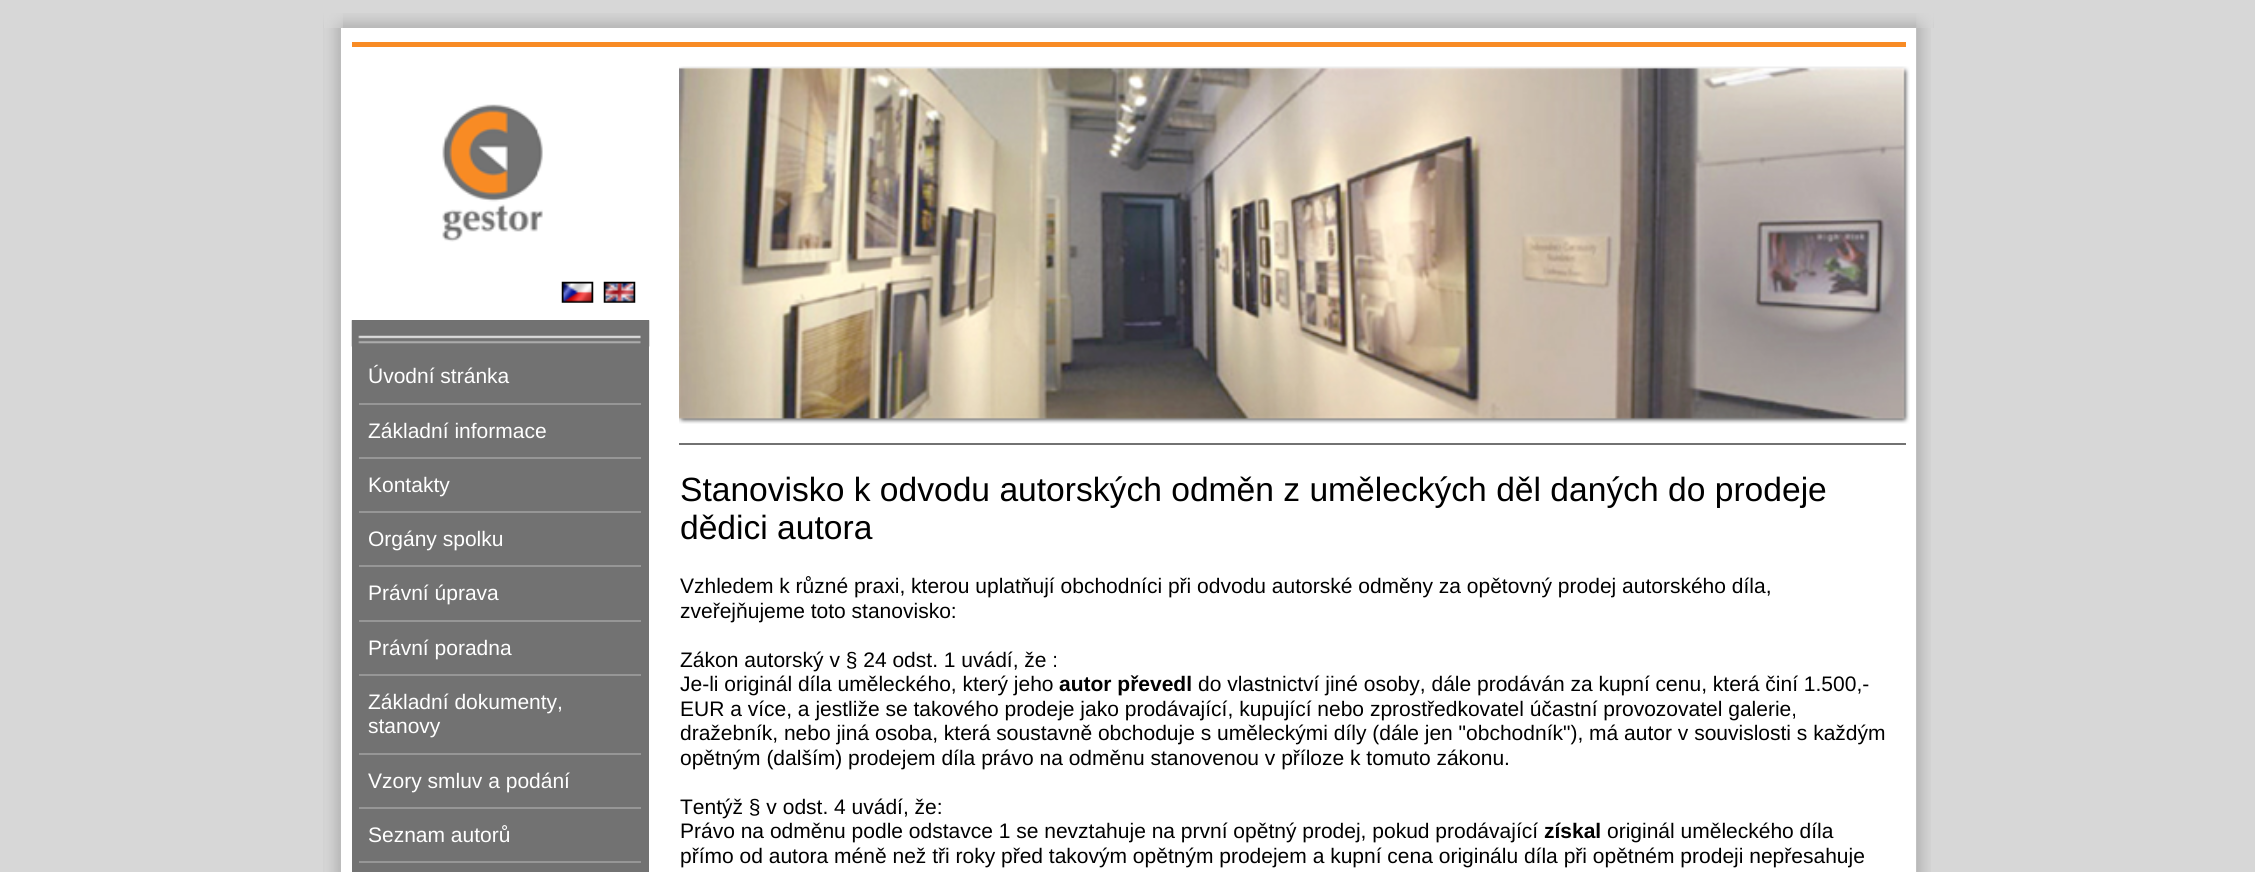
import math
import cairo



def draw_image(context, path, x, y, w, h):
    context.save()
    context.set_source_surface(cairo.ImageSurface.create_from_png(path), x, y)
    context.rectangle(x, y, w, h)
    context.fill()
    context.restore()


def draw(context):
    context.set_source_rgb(215 / 255, 215 / 255, 215 / 255)
    context.paint()
    draw_image(context, "images/1.png", 323, 13, 1611, 15)
    draw_image(context, "images/2.png", 324, 13, 19, 15)
    draw_image(context, "images/3.png", 1916, 13, 18, 15)
    draw_image(context, "images/4.png", 323, 28, 18, 844)
    draw_image(context, "images/5.png", 1916, 28, 15, 844)
    context.set_source_rgb(1, 1, 1)
    context.rectangle(341, 28, 1575, 844)
    context.fill()
    context.set_source_rgb(248 / 255, 139 / 255, 36 / 255)
    context.rectangle(352, 42, 1554, 5)
    context.fill()
    draw_image(context, "images/6.png", 442, 104, 101, 138)
    draw_image(context, "images/7.png", 561, 281, 33, 22)
    draw_image(context, "images/8.png", 603, 281, 33, 22)
    context.set_source_rgb(114 / 255, 114 / 255, 114 / 255)
    context.rectangle(352, 320, 297, 552)
    context.fill()
    draw_image(context, "images/9.png", 351, 320, 299, 27)
    context.set_source_rgb(150 / 255, 150 / 255, 150 / 255)
    context.rectangle(359, 403, 282, 2)
    context.fill()
    context.rectangle(359, 457, 282, 2)
    context.fill()
    context.rectangle(359, 511, 282, 2)
    context.fill()
    context.rectangle(359, 565, 282, 2)
    context.fill()
    context.rectangle(359, 620, 282, 2)
    context.fill()
    context.rectangle(359, 674, 282, 2)
    context.fill()
    context.rectangle(359, 753, 282, 2)
    context.fill()
    context.rectangle(359, 807, 282, 2)
    context.fill()
    context.rectangle(359, 861, 282, 2)
    context.fill()
    draw_image(context, "images/10.png", 679, 66, 1231, 358)
    context.set_source_rgb(114 / 255, 114 / 255, 114 / 255)
    context.rectangle(679, 443, 1227, 2)
    context.fill()
    context.select_font_face("Liberation Sans")
    context.set_font_size(21)
    context.set_source_rgb(1, 1, 1)
    context.move_to(368, 383)
    context.show_text("Úvodní stránka")
    context.move_to(368, 438)
    context.show_text("Základní informace")
    context.move_to(368, 492)
    context.show_text("Kontakty")
    context.move_to(368, 546)
    context.show_text("Orgány spolku")
    context.move_to(368, 600)
    context.show_text("Právní úprava")
    context.move_to(368, 655)
    context.show_text("Právní poradna")
    context.move_to(368, 709)
    context.show_text("Základní dokumenty,")
    context.move_to(368, 733)
    context.show_text("stanovy")
    context.move_to(368, 788)
    context.show_text("Vzory smluv a podání")
    context.move_to(368, 842)
    context.show_text("Seznam autorů")
    context.set_font_size(33.6)
    context.set_source_rgb(0, 0, 0)
    context.move_to(680, 501)
    context.show_text("Stanovisko k odvodu autorských odměn z uměleckých děl daných do prodeje")
    context.move_to(680, 539)
    context.show_text("dědici autora")
    context.set_font_size(21)
    context.move_to(680, 593)
    context.show_text("Vzhledem k různé praxi, kterou uplatňují obchodníci při odvodu autorské odměny za opětovný prodej autorského díla,")
    context.move_to(680, 618)
    context.show_text("zveřejňujeme toto stanovisko:")
    context.move_to(680, 667)
    context.show_text("Zákon autorský v § 24 odst. 1 uvádí, že :")
    context.move_to(680, 691)
    context.show_text("Je-li originál díla uměleckého, který jeho")
    context.select_font_face("Liberation Sans", cairo.FontSlant.NORMAL, cairo.FontWeight.BOLD)
    context.move_to(1059, 691)
    context.show_text("autor převedl")
    context.select_font_face("Liberation Sans")
    context.move_to(1198, 691)
    context.show_text("do vlastnictví jiné osoby, dále prodáván za kupní cenu, která činí 1.500,-")
    context.move_to(680, 716)
    context.show_text("EUR a více, a jestliže se takového prodeje jako prodávající, kupující nebo zprostředkovatel účastní provozovatel galerie,")
    context.move_to(680, 740)
    context.show_text("dražebník, nebo jiná osoba, která soustavně obchoduje s uměleckými díly (dále jen \"obchodník\"), má autor v souvislosti s každým")
    context.move_to(680, 765)
    context.show_text("opětným (dalším) prodejem díla právo na odměnu stanovenou v příloze k tomuto zákonu.")
    context.move_to(680, 814)
    context.show_text("Tentýž § v odst. 4 uvádí, že:")
    context.move_to(680, 838)
    context.show_text("Právo na odměnu podle odstavce 1 se nevztahuje na první opětný prodej, pokud prodávající")
    context.select_font_face("Liberation Sans", cairo.FontSlant.NORMAL, cairo.FontWeight.BOLD)
    context.move_to(1544, 838)
    context.show_text("získal")
    context.select_font_face("Liberation Sans")
    context.move_to(1607, 838)
    context.show_text("originál uměleckého díla")
    context.move_to(680, 863)
    context.show_text("přímo od autora méně než tři roky před takovým opětným prodejem a kupní cena originálu díla při opětném prodeji nepřesahuje")


surface = cairo.ImageSurface(cairo.Format.RGB24, 2255, 872)
context = cairo.Context(surface)
options = cairo.FontOptions()
options.set_hint_metrics(cairo.HintMetrics.OFF)
options.set_hint_style(cairo.HintStyle.NONE)
context.set_font_options(options)
context.set_miter_limit(4)
draw(context)
surface.write_to_png("out.png")
